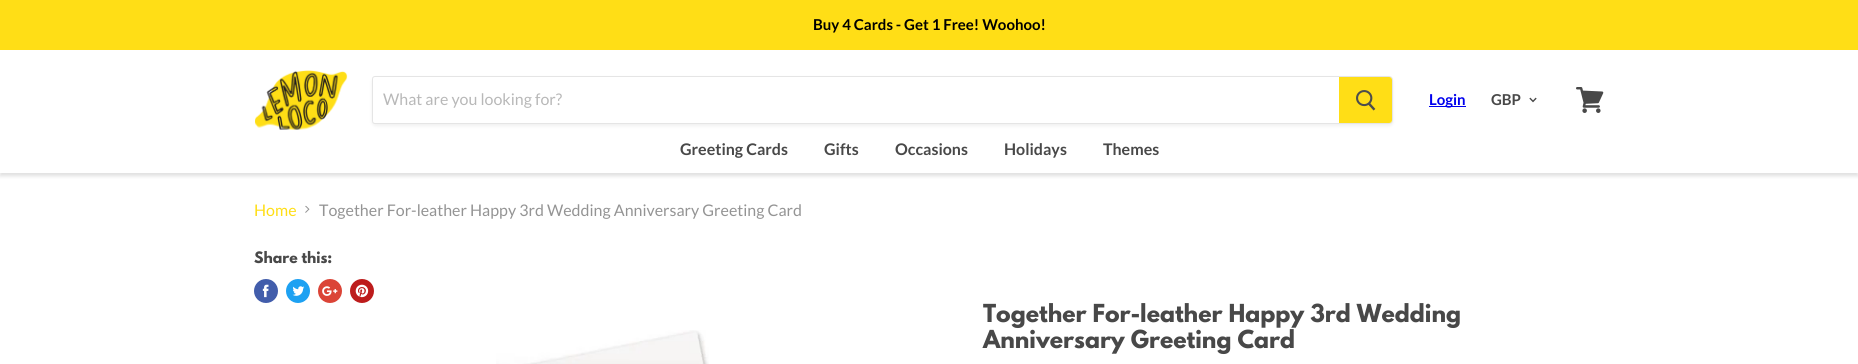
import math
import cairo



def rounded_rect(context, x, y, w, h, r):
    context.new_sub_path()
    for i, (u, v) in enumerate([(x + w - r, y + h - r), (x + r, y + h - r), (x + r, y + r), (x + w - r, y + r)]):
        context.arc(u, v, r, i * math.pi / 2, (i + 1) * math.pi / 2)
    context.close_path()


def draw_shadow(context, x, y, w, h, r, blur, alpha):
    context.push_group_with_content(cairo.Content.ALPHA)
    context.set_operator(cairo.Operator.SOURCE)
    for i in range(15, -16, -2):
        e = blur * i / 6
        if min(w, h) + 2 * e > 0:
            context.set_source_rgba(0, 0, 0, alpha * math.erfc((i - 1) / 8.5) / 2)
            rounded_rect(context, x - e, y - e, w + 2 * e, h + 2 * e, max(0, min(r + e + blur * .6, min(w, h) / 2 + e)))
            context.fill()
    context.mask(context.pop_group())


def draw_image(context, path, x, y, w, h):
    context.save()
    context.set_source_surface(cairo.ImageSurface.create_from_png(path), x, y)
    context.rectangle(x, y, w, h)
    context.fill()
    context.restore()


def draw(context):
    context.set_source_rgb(1, 1, 1)
    context.paint()
    context.set_source_rgb(1, 222 / 255, 22 / 255)
    context.rectangle(0, 0, 1858, 50)
    context.fill()
    draw_image(context, "images/1.png", 255, 70, 93, 60)
    context.save()
    context.set_fill_rule(cairo.FillRule.EVEN_ODD)
    context.new_path()
    context.move_to(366, 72)
    context.line_to(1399, 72)
    context.line_to(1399, 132)
    context.line_to(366, 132)
    context.close_path()
    context.move_to(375, 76)
    context.line_to(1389, 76)
    context.curve_to(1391, 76, 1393, 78, 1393, 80)
    context.line_to(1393, 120)
    context.curve_to(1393, 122, 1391, 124, 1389, 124)
    context.line_to(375, 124)
    context.curve_to(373.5, 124, 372, 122.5, 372, 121)
    context.line_to(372, 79)
    context.curve_to(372, 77.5, 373.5, 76, 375, 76)
    context.close_path()
    context.clip()
    context.set_source_rgb(127 / 255, 127 / 255, 127 / 255)
    draw_shadow(context, 372, 78, 1021, 48, 4, 1.5, 0.11)
    context.restore()
    context.new_path()
    context.move_to(375, 76.5)
    context.line_to(1389, 76.5)
    context.curve_to(1391, 76.5, 1392.5, 78, 1392.5, 80)
    context.line_to(1392.5, 120)
    context.curve_to(1392.5, 122, 1391, 123.5, 1389, 123.5)
    context.line_to(375, 123.5)
    context.curve_to(373.5, 123.5, 372.5, 122.5, 372.5, 121)
    context.line_to(372.5, 79)
    context.curve_to(372.5, 77.5, 373.5, 76.5, 375, 76.5)
    context.close_path()
    context.set_source_rgba(127 / 255, 127 / 255, 127 / 255, 0.2)
    context.set_line_width(1)
    context.stroke()
    context.set_source_rgb(1, 222 / 255, 22 / 255)
    context.new_path()
    context.move_to(1339.5, 77.5)
    context.line_to(1389, 77.5)
    context.curve_to(1390.5, 77.5, 1391.5, 78.5, 1391.5, 80)
    context.line_to(1391.5, 120)
    context.curve_to(1391.5, 121.5, 1390.5, 122.5, 1389, 122.5)
    context.line_to(1339.5, 122.5)
    context.close_path()
    context.fill_preserve()
    context.stroke()
    draw_image(context, "images/2.png", 1356, 90, 20, 21)
    context.set_source_rgb(0, 0, 238 / 255)
    context.rectangle(1429, 106, 37, 1)
    context.fill()
    draw_image(context, "images/3.png", 1529, 97, 8, 6)
    draw_image(context, "images/4.png", 1576, 87, 28, 26)
    context.save()
    context.rectangle(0, 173, 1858, 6)
    context.clip()
    context.set_source_rgb(127 / 255, 127 / 255, 127 / 255)
    draw_shadow(context, 0, 143, 1858, 33, 0, 2, 0.25)
    context.restore()
    draw_image(context, "images/5.png", 305, 205, 5, 8)
    context.set_source_rgb(66 / 255, 93 / 255, 171 / 255)
    context.arc(266, 291, 12, 0, 2 * math.pi)
    context.fill()
    draw_image(context, "images/6.png", 262, 284, 7, 14)
    context.set_source_rgb(29 / 255, 161 / 255, 242 / 255)
    context.arc(298, 291, 12, 0, 2 * math.pi)
    context.fill()
    draw_image(context, "images/7.png", 292, 286, 13, 10)
    context.set_source_rgb(219 / 255, 68 / 255, 55 / 255)
    context.arc(330, 291, 12, 0, 2 * math.pi)
    context.fill()
    draw_image(context, "images/8.png", 322, 286, 16, 10)
    context.set_source_rgb(189 / 255, 28 / 255, 28 / 255)
    context.arc(362, 291, 12, 0, 2 * math.pi)
    context.fill()
    draw_image(context, "images/9.png", 355, 284, 14, 14)
    draw_image(context, "images/10.png", 496, 330, 213, 34)
    context.select_font_face("Lato", cairo.FontSlant.NORMAL, cairo.FontWeight.BOLD)
    context.set_font_size(15)
    context.set_source_rgb(0, 0, 0)
    context.move_to(813, 30)
    context.show_text("Buy 4 Cards - Get 1 Free! Woohoo!")
    context.select_font_face("Lato")
    context.set_font_size(16)
    context.set_source_rgb(184 / 255, 184 / 255, 184 / 255)
    context.move_to(383, 105)
    context.show_text("What are you looking for?")
    context.select_font_face("Lato", cairo.FontSlant.NORMAL, cairo.FontWeight.BOLD)
    context.set_font_size(15)
    context.set_source_rgb(0, 0, 238 / 255)
    context.move_to(1429, 105)
    context.show_text("Login")
    context.set_source_rgb(72 / 255, 72 / 255, 72 / 255)
    context.move_to(1491, 105)
    context.show_text("GBP")
    context.set_font_size(16)
    context.move_to(680, 155)
    context.show_text("Greeting Cards")
    context.move_to(824, 155)
    context.show_text("Gifts")
    context.move_to(895, 155)
    context.show_text("Occasions")
    context.move_to(1004, 155)
    context.show_text("Holidays")
    context.move_to(1103, 155)
    context.show_text("Themes")
    context.select_font_face("Lato")
    context.set_source_rgb(1, 222 / 255, 22 / 255)
    context.move_to(254, 216)
    context.show_text("Home")
    context.set_source_rgb(148 / 255, 148 / 255, 148 / 255)
    context.move_to(319, 216)
    context.show_text("Together For-leather Happy 3rd Wedding Anniversary Greeting Card")
    context.select_font_face("League Spartan", cairo.FontSlant.NORMAL, cairo.FontWeight.BOLD)
    context.set_font_size(14)
    context.set_source_rgb(72 / 255, 72 / 255, 72 / 255)
    context.move_to(254, 263)
    context.show_text("Share this:")
    context.set_font_size(22)
    context.move_to(983, 322)
    context.show_text("Together For-leather Happy 3rd Wedding")
    context.move_to(983, 348)
    context.show_text("Anniversary Greeting Card")


surface = cairo.ImageSurface(cairo.Format.RGB24, 1858, 364)
context = cairo.Context(surface)
options = cairo.FontOptions()
options.set_hint_metrics(cairo.HintMetrics.OFF)
options.set_hint_style(cairo.HintStyle.NONE)
context.set_font_options(options)
context.set_miter_limit(4)
draw(context)
surface.write_to_png("out.png")
